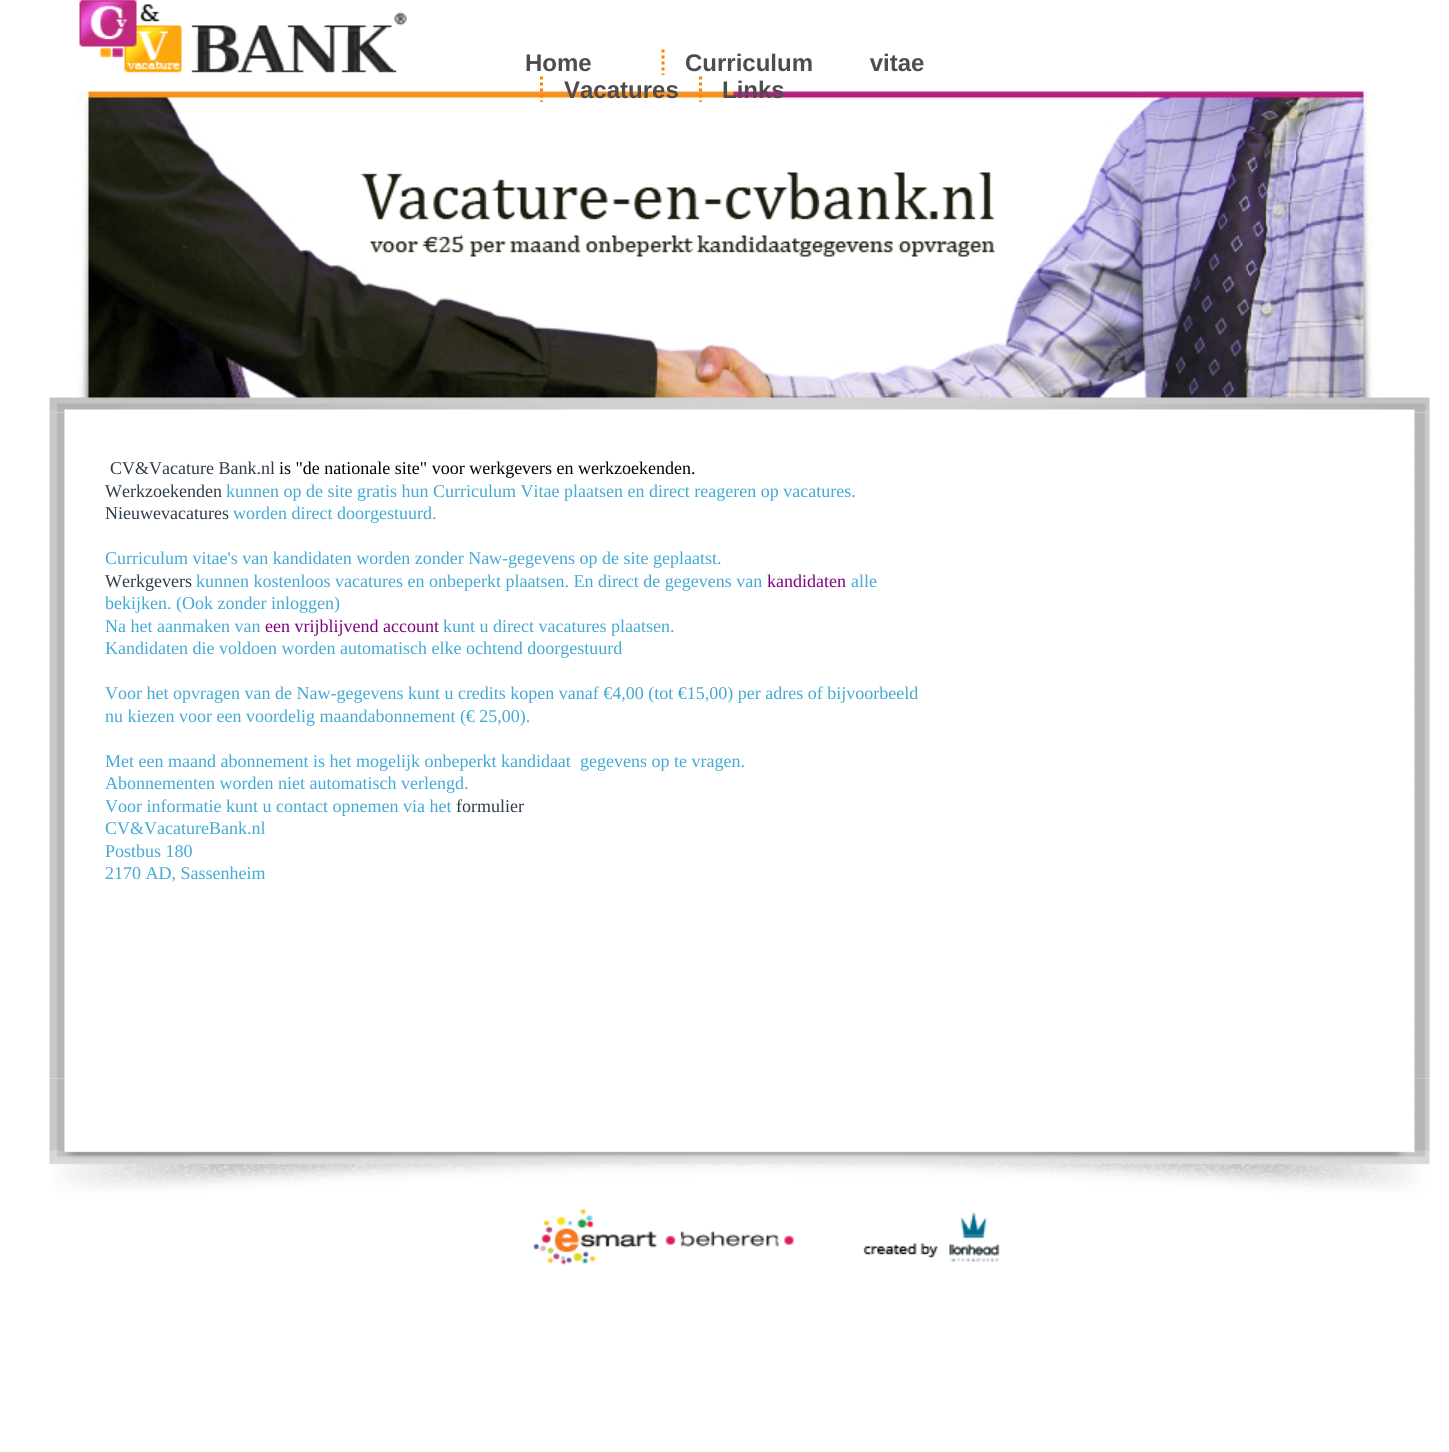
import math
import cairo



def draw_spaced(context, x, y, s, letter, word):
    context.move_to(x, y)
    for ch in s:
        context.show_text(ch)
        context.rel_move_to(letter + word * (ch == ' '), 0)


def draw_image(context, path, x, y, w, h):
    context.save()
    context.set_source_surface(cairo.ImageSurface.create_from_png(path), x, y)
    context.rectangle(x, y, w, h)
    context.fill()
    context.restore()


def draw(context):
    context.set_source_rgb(1, 1, 1)
    context.paint()
    draw_image(context, "images/1.png", 49, 0, 1381, 413)
    context.new_path()
    context.move_to(663, 49.5)
    context.line_to(663, 75)
    context.set_source_rgb(254 / 255, 130 / 255, 0)
    context.set_line_width(3)
    context.set_dash([3, 3])
    context.stroke()
    context.new_path()
    context.move_to(541.5, 76.5)
    context.line_to(541.5, 102)
    context.stroke()
    context.new_path()
    context.move_to(700.5, 76.5)
    context.line_to(700.5, 102)
    context.stroke()
    draw_image(context, "images/2.png", 49, 412, 1381, 667)
    draw_image(context, "images/3.png", 49, 1078, 1381, 115)
    draw_image(context, "images/4.png", 533, 1208, 125, 57)
    draw_image(context, "images/5.png", 665, 1231, 129, 16)
    draw_image(context, "images/6.png", 863, 1212, 137, 50)
    context.select_font_face("Liberation Sans", cairo.FontSlant.NORMAL, cairo.FontWeight.BOLD)
    context.set_font_size(24)
    context.set_source_rgb(78 / 255, 76 / 255, 76 / 255)
    context.move_to(525, 71)
    context.show_text("Home")
    draw_spaced(context, 685, 71, "Curriculum vitae", 0, 50)
    context.move_to(564, 98)
    context.show_text("Vacatures")
    context.move_to(722, 98)
    context.show_text("Links")
    context.select_font_face("Liberation Serif")
    context.set_font_size(18)
    context.set_source_rgb(46 / 255, 59 / 255, 72 / 255)
    context.move_to(110, 474)
    context.show_text("CV&Vacature Bank.nl")
    context.set_source_rgb(0, 0, 0)
    context.move_to(279, 474)
    context.show_text("is \"de nationale site\" voor werkgevers en werkzoekenden.")
    context.set_source_rgb(46 / 255, 59 / 255, 72 / 255)
    context.move_to(105, 497)
    context.show_text("Werkzoekenden")
    context.set_source_rgb(66 / 255, 169 / 255, 212 / 255)
    context.move_to(226, 497)
    context.show_text("kunnen op de site gratis hun Curriculum Vitae plaatsen en direct reageren op vacatures.")
    context.set_source_rgb(46 / 255, 59 / 255, 72 / 255)
    context.move_to(105, 519)
    context.show_text("Nieuwevacatures")
    context.set_source_rgb(66 / 255, 169 / 255, 212 / 255)
    context.move_to(233, 519)
    context.show_text("worden direct doorgestuurd.")
    context.move_to(105, 564)
    context.show_text("Curriculum vitae's van kandidaten worden zonder Naw-gegevens op de site geplaatst.")
    context.set_source_rgb(46 / 255, 59 / 255, 72 / 255)
    context.move_to(105, 587)
    context.show_text("Werkgevers")
    context.set_source_rgb(66 / 255, 169 / 255, 212 / 255)
    context.move_to(196, 587)
    context.show_text("kunnen kostenloos vacatures en onbeperkt plaatsen. En direct de gegevens van")
    context.set_source_rgb(128 / 255, 0, 128 / 255)
    context.move_to(767, 587)
    context.show_text("kandidaten")
    context.set_source_rgb(66 / 255, 169 / 255, 212 / 255)
    context.move_to(851, 587)
    context.show_text("alle")
    context.move_to(105, 609)
    context.show_text("bekijken. (Ook zonder inloggen)")
    context.move_to(105, 632)
    context.show_text("Na het aanmaken van")
    context.set_source_rgb(128 / 255, 0, 128 / 255)
    context.move_to(265, 632)
    context.show_text("een vrijblijvend account")
    context.set_source_rgb(66 / 255, 169 / 255, 212 / 255)
    context.move_to(443, 632)
    context.show_text("kunt u direct vacatures plaatsen.")
    context.move_to(105, 654)
    context.show_text("Kandidaten die voldoen worden automatisch elke ochtend doorgestuurd")
    context.move_to(105, 699)
    context.show_text("Voor het opvragen van de Naw-gegevens kunt u credits kopen vanaf €4,00 (tot €15,00) per adres of bijvoorbeeld")
    context.move_to(105, 722)
    context.show_text("nu kiezen voor een voordelig maandabonnement (€ 25,00).")
    context.move_to(105, 767)
    context.show_text("Met een maand abonnement is het mogelijk onbeperkt kandidaat")
    context.move_to(580, 767)
    context.show_text("gegevens op te vragen.")
    context.move_to(105, 789)
    context.show_text("Abonnementen worden niet automatisch verlengd.")
    context.move_to(105, 812)
    context.show_text("Voor informatie kunt u contact opnemen via het")
    context.set_source_rgb(46 / 255, 59 / 255, 72 / 255)
    context.move_to(456, 812)
    context.show_text("formulier")
    context.set_source_rgb(66 / 255, 169 / 255, 212 / 255)
    context.move_to(105, 834)
    context.show_text("CV&VacatureBank.nl")
    context.move_to(105, 857)
    context.show_text("Postbus 180")
    context.move_to(105, 879)
    context.show_text("2170 AD, Sassenheim")


surface = cairo.ImageSurface(cairo.Format.RGB24, 1449, 1452)
context = cairo.Context(surface)
options = cairo.FontOptions()
options.set_hint_metrics(cairo.HintMetrics.OFF)
options.set_hint_style(cairo.HintStyle.NONE)
context.set_font_options(options)
context.set_miter_limit(4)
draw(context)
surface.write_to_png("out.png")
